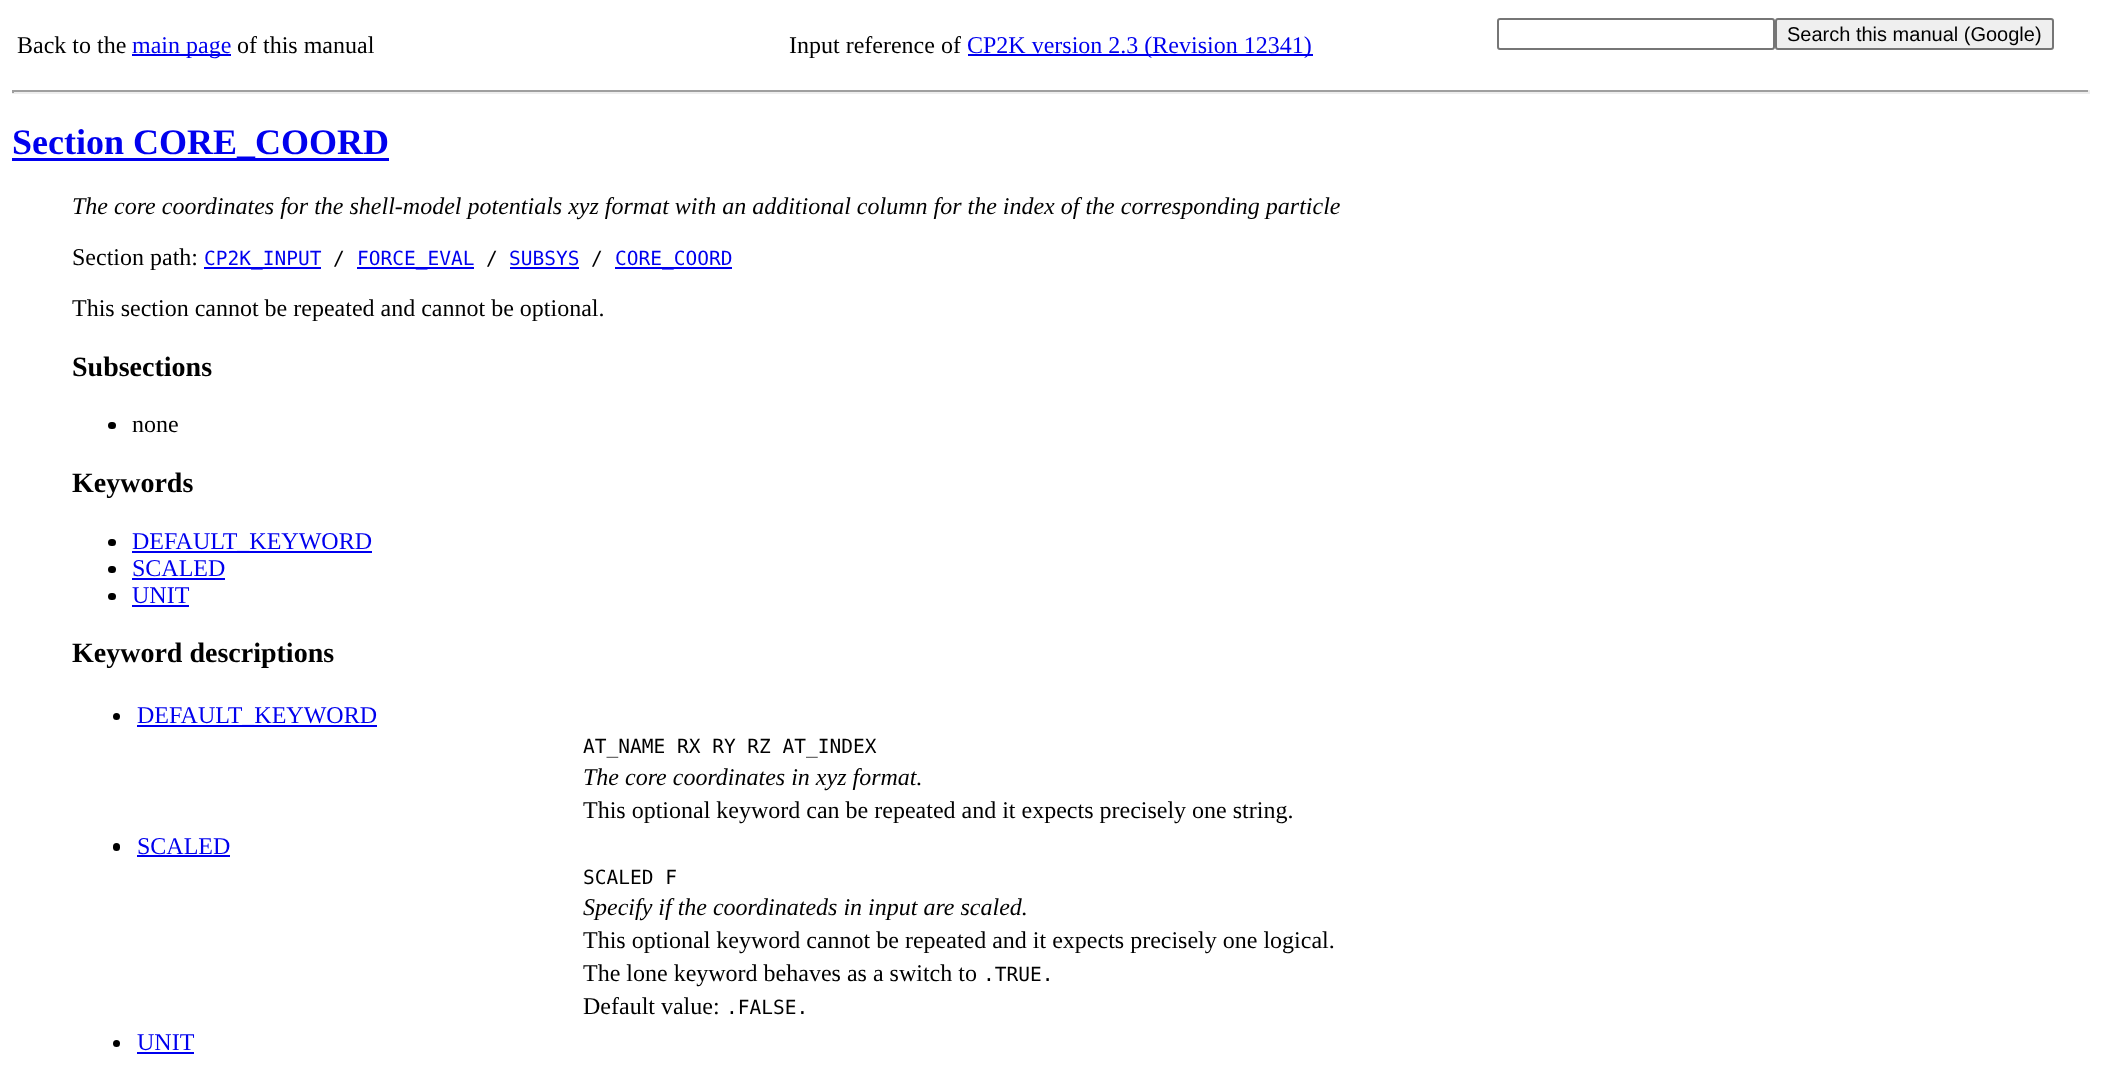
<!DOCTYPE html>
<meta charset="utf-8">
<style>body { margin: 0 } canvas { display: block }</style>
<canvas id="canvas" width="2101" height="1073"></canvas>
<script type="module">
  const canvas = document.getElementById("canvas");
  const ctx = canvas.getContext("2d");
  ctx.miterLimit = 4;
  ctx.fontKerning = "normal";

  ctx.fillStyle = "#ffffff";
  ctx.fillRect(0, 0, 2101, 1073);
  ctx.font = "24px Liberation Serif";
  ctx.fillStyle = "#000000";
  ctx.fillText("Back to the", 17, 53);
  ctx.fillStyle = "#0000ee";
  ctx.fillRect(132, 54, 99, 2);
  ctx.fillText("main page", 132, 53);
  ctx.fillStyle = "#000000";
  ctx.fillText("of this manual", 237, 53);
  ctx.fillText("Input reference of", 789, 53);
  ctx.fillStyle = "#0000ee";
  ctx.fillRect(968, 54, 345, 2);
  ctx.fillText("CP2K version 2.3 (Revision 12341)", 967, 53);
  ctx.beginPath();
  ctx.roundRect(1498, 19, 276, 30, 2);
  ctx.strokeStyle = "#767676";
  ctx.lineWidth = 2;
  ctx.stroke();
  ctx.fillStyle = "#efefef";
  ctx.beginPath();
  ctx.roundRect(1776, 19, 277, 30, 2);
  ctx.fill();
  ctx.stroke();
  ctx.font = "20px Liberation Sans";
  ctx.fillStyle = "#000000";
  ctx.fillText("Search this manual (Google)", 1787, 41);
  ctx.fillStyle = "#9f9f9f";
  ctx.fillRect(12, 90, 2078, 2);
  ctx.fillStyle = "#eeeeee";
  ctx.fillRect(2088, 90, 2, 3);
  ctx.fillRect(12, 92, 2078, 2);
  ctx.fillStyle = "#9f9f9f";
  ctx.fillRect(12, 90, 2, 3);
  ctx.fillStyle = "#0000ee";
  ctx.fillRect(12, 158, 377, 3);
  ctx.font = "bold 36px Liberation Serif";
  ctx.fillText("Section CORE_COORD", 12, 154);
  ctx.font = "italic 24px Liberation Serif";
  ctx.fillStyle = "#000000";
  ctx.fillText("The core coordinates for the shell-model potentials xyz format with an additional column for the index of the corresponding particle", 72, 214);
  ctx.font = "24px Liberation Serif";
  ctx.fillText("Section path:", 72, 265);
  ctx.fillStyle = "#0000ee";
  ctx.fillRect(204, 267, 117, 2);
  ctx.font = "19.5px DejaVu Sans Mono";
  ctx.fillText("CP2K_INPUT", 204, 265);
  ctx.fillStyle = "#000000";
  ctx.fillText("/", 333, 265);
  ctx.fillStyle = "#0000ee";
  ctx.fillRect(357, 267, 117, 2);
  ctx.fillText("FORCE_EVAL", 357, 265);
  ctx.fillStyle = "#000000";
  ctx.fillText("/", 486, 265);
  ctx.fillStyle = "#0000ee";
  ctx.fillText("SUBSYS", 509, 265);
  ctx.fillRect(510, 267, 69, 2);
  ctx.fillStyle = "#000000";
  ctx.fillText("/", 591, 265);
  ctx.fillStyle = "#0000ee";
  ctx.fillRect(615, 267, 117, 2);
  ctx.fillText("CORE_COORD", 615, 265);
  ctx.font = "24px Liberation Serif";
  ctx.fillStyle = "#000000";
  ctx.fillText("This section cannot be repeated and cannot be optional.", 72, 316);
  ctx.font = "bold 28px Liberation Serif";
  ctx.fillText("Subsections", 72, 376);
  ctx.beginPath();
  ctx.roundRect(108, 422, 8, 7, 3.5);
  ctx.fill();
  ctx.font = "24px Liberation Serif";
  ctx.fillText("none", 132, 432);
  ctx.font = "bold 28px Liberation Serif";
  ctx.fillText("Keywords", 72, 492);
  ctx.beginPath();
  ctx.roundRect(108, 539, 8, 7, 3.5);
  ctx.fill();
  ctx.fillStyle = "#0000ee";
  ctx.fillRect(132, 551, 240, 2);
  ctx.font = "24px Liberation Serif";
  ctx.fillText("DEFAULT_KEYWORD", 132, 549);
  ctx.fillStyle = "#000000";
  ctx.beginPath();
  ctx.roundRect(108, 566, 8, 7, 3.5);
  ctx.fill();
  ctx.fillStyle = "#0000ee";
  ctx.fillText("SCALED", 132, 576);
  ctx.fillRect(132, 578, 93, 2);
  ctx.fillStyle = "#000000";
  ctx.beginPath();
  ctx.roundRect(108, 593, 8, 7, 3.5);
  ctx.fill();
  ctx.fillStyle = "#0000ee";
  ctx.fillText("UNIT", 132, 603);
  ctx.fillRect(132, 605, 57, 2);
  ctx.font = "bold 28px Liberation Serif";
  ctx.fillStyle = "#000000";
  ctx.fillText("Keyword descriptions", 72, 662);
  ctx.beginPath();
  ctx.arc(116.5, 716.5, 3.5, 0, Math.PI * 2);
  ctx.fill();
  ctx.fillStyle = "#0000ee";
  ctx.fillRect(137, 725, 240, 2);
  ctx.font = "24px Liberation Serif";
  ctx.fillText("DEFAULT_KEYWORD", 137, 723);
  ctx.font = "19.5px DejaVu Sans Mono";
  ctx.fillStyle = "#000000";
  ctx.fillText("AT_NAME RX RY RZ AT_INDEX", 583, 753);
  ctx.font = "italic 24px Liberation Serif";
  ctx.fillText("The core coordinates in xyz format.", 583, 785);
  ctx.font = "24px Liberation Serif";
  ctx.fillText("This optional keyword can be repeated and it expects precisely one string.", 583, 818);
  ctx.beginPath();
  ctx.roundRect(113, 843, 7, 8, 3.5);
  ctx.fill();
  ctx.fillStyle = "#0000ee";
  ctx.fillText("SCALED", 137, 854);
  ctx.fillRect(137, 855, 93, 2);
  ctx.font = "19.5px DejaVu Sans Mono";
  ctx.fillStyle = "#000000";
  ctx.fillText("SCALED F", 583, 884);
  ctx.font = "italic 24px Liberation Serif";
  ctx.fillText("Specify if the coordinateds in input are scaled.", 583, 915);
  ctx.font = "24px Liberation Serif";
  ctx.fillText("This optional keyword cannot be repeated and it expects precisely one logical.", 583, 948);
  ctx.fillText("The lone keyword behaves as a switch to", 583, 981);
  ctx.font = "19.5px DejaVu Sans Mono";
  ctx.fillText(".TRUE.", 983, 981);
  ctx.font = "24px Liberation Serif";
  ctx.fillText("Default value:", 583, 1014);
  ctx.font = "19.5px DejaVu Sans Mono";
  ctx.fillText(".FALSE.", 726, 1014);
  ctx.beginPath();
  ctx.arc(116.5, 1043.5, 3.5, 0, Math.PI * 2);
  ctx.fill();
  ctx.font = "24px Liberation Serif";
  ctx.fillStyle = "#0000ee";
  ctx.fillText("UNIT", 137, 1050);
  ctx.fillRect(137, 1052, 57, 2);
</script>
